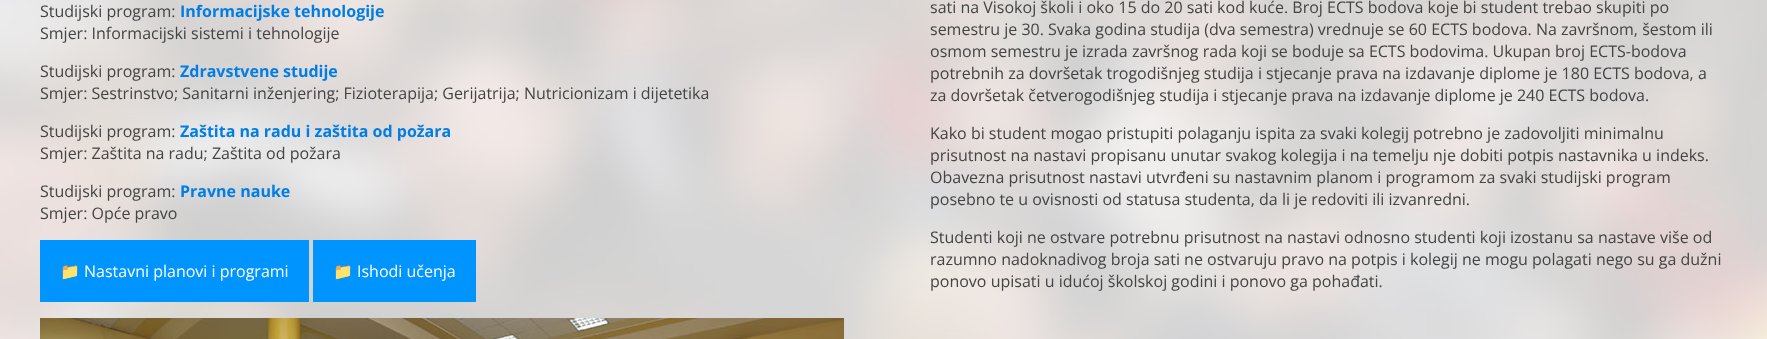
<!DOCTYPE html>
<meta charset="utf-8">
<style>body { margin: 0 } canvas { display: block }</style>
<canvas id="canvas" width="1767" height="339"></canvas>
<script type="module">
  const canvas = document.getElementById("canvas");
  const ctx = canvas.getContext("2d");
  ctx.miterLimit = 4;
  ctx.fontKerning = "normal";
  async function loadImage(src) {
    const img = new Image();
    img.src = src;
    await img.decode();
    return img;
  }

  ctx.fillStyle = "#ffffff";
  ctx.fillRect(0, 0, 1767, 339);
  ctx.drawImage(await loadImage("img1.png"), 0, 0, 1767, 339);
  ctx.font = "16px Open Sans";
  ctx.fillStyle = "#444444";
  ctx.fillText("Studijski program:", 40, 17);
  ctx.font = "bold 16px Open Sans";
  ctx.fillStyle = "#007ee5";
  ctx.fillText("Informacijske tehnologije", 180, 17);
  ctx.font = "16px Open Sans";
  ctx.fillStyle = "#444444";
  ctx.fillText("Smjer: Informacijski sistemi i tehnologije", 40, 39);
  ctx.fillText("Studijski program:", 40, 77);
  ctx.font = "bold 16px Open Sans";
  ctx.fillStyle = "#007ee5";
  ctx.fillText("Zdravstvene studije", 180, 77);
  ctx.font = "16px Open Sans";
  ctx.fillStyle = "#444444";
  ctx.fillText("Smjer: Sestrinstvo; Sanitarni inženjering; Fizioterapija; Gerijatrija; Nutricionizam i dijetetika", 40, 99);
  ctx.fillText("Studijski program:", 40, 137);
  ctx.font = "bold 16px Open Sans";
  ctx.fillStyle = "#007ee5";
  ctx.fillText("Zaštita na radu i zaštita od požara", 180, 137);
  ctx.font = "16px Open Sans";
  ctx.fillStyle = "#444444";
  ctx.fillText("Smjer: Zaštita na radu; Zaštita od požara", 40, 159);
  ctx.fillText("Studijski program:", 40, 197);
  ctx.font = "bold 16px Open Sans";
  ctx.fillStyle = "#007ee5";
  ctx.fillText("Pravne nauke", 180, 197);
  ctx.font = "16px Open Sans";
  ctx.fillStyle = "#444444";
  ctx.fillText("Smjer: Opće pravo", 40, 219);
  ctx.fillStyle = "#0094ff";
  ctx.fillRect(40, 240, 269, 62);
  ctx.font = "16px Noto Color Emoji";
  ctx.fillStyle = "#ffffff";
  ctx.fillText("📁", 60, 277);
  ctx.font = "16px Open Sans";
  ctx.fillText("Nastavni planovi i programi", 84, 277);
  ctx.fillStyle = "#0094ff";
  ctx.fillRect(313, 240, 163, 62);
  ctx.font = "16px Noto Color Emoji";
  ctx.fillStyle = "#ffffff";
  ctx.fillText("📁", 333, 277);
  ctx.font = "16px Open Sans";
  ctx.fillText("Ishodi učenja", 357, 277);
  ctx.drawImage(await loadImage("img2.png"), 40, 318, 804, 21);
  ctx.fillStyle = "#444444";
  ctx.fillText("sati na Visokoj školi i oko 15 do 20 sati kod kuće. Broj ECTS bodova koje bi student trebao skupiti po", 930, 13);
  ctx.fillText("semestru je 30. Svaka godina studija (dva semestra) vrednuje se 60 ECTS bodova. Na završnom, šestom ili", 930, 35);
  ctx.fillText("osmom semestru je izrada završnog rada koji se boduje sa ECTS bodovima. Ukupan broj ECTS-bodova", 930, 57);
  ctx.fillText("potrebnih za dovršetak trogodišnjeg studija i stjecanje prava na izdavanje diplome je 180 ECTS bodova, a", 930, 79);
  ctx.fillText("za dovršetak četverogodišnjeg studija i stjecanje prava na izdavanje diplome je 240 ECTS bodova.", 930, 101);
  ctx.fillText("Kako bi student mogao pristupiti polaganju ispita za svaki kolegij potrebno je zadovoljiti minimalnu", 930, 139);
  ctx.fillText("prisutnost na nastavi propisanu unutar svakog kolegija i na temelju nje dobiti potpis nastavnika u indeks.", 930, 161);
  ctx.fillText("Obavezna prisutnost nastavi utvrđeni su nastavnim planom i programom za svaki studijski program", 930, 183);
  ctx.fillText("posebno te u ovisnosti od statusa studenta, da li je redoviti ili izvanredni.", 930, 205);
  ctx.fillText("Studenti koji ne ostvare potrebnu prisutnost na nastavi odnosno studenti koji izostanu sa nastave više od", 930, 243);
  ctx.fillText("razumno nadoknadivog broja sati ne ostvaruju pravo na potpis i kolegij ne mogu polagati nego su ga dužni", 930, 265);
  ctx.fillText("ponovo upisati u idućoj školskoj godini i ponovo ga pohađati.", 930, 287);
</script>
